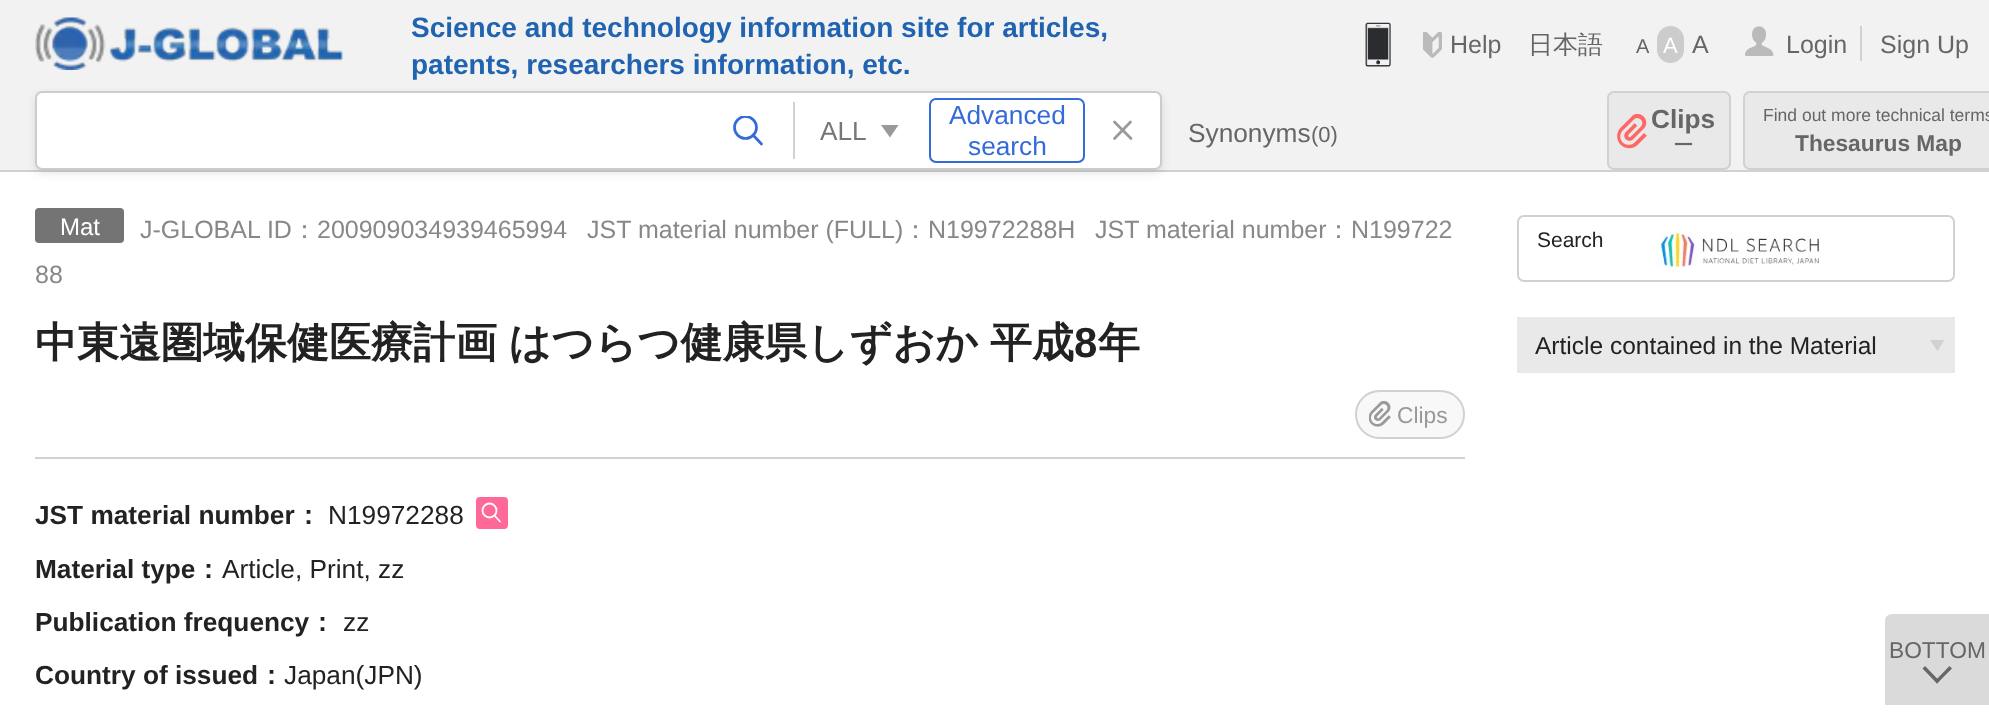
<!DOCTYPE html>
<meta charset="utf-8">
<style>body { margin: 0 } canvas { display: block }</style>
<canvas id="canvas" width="1989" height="718"></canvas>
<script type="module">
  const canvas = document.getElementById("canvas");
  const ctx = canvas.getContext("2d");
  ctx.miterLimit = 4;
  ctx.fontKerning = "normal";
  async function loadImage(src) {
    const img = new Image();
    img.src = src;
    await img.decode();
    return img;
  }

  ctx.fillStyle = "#ffffff";
  ctx.fillRect(0, 0, 1989, 718);
  ctx.fillStyle = "#f2f2f2";
  ctx.fillRect(0, 0, 1989, 170);
  ctx.drawImage(await loadImage("img1.png"), 35, 17, 308, 53);
  ctx.font = "bold 28px Liberation Sans";
  ctx.fillStyle = "#2064b1";
  ctx.fillText("Science and technology information site for articles,", 411, 37);
  ctx.fillText("patents, researchers information, etc.", 411, 74);
  ctx.drawImage(await loadImage("img2.png"), 1365, 22, 26, 45);
  ctx.drawImage(await loadImage("img3.png"), 1423, 32, 19, 26);
  ctx.font = "25px Liberation Sans";
  ctx.fillStyle = "#666666";
  ctx.fillText("Help", 1450, 53);
  ctx.font = "500 25px WenQuanYi Zen Hei";
  ctx.fillText("日本語", 1528, 53);
  ctx.font = "20px Liberation Sans";
  ctx.fillText("A", 1636, 53);
  ctx.fillStyle = "#cccccc";
  ctx.beginPath();
  ctx.roundRect(1657, 26, 27, 37, 13.5);
  ctx.fill();
  ctx.font = "22px Liberation Sans";
  ctx.fillStyle = "#ffffff";
  ctx.fillText("A", 1663, 53);
  ctx.font = "25px Liberation Sans";
  ctx.fillStyle = "#666666";
  ctx.fillText("A", 1692, 53);
  ctx.drawImage(await loadImage("img4.png"), 1745, 26, 29, 30);
  ctx.fillStyle = "#d1d1d1";
  ctx.fillRect(1860, 26, 2, 35);
  ctx.fillStyle = "#666666";
  ctx.fillText("Login", 1786, 53);
  ctx.fillText("Sign Up", 1880, 53);
  ctx.fillStyle = "#d1d1d1";
  ctx.fillRect(0, 170, 1989, 2);
  ctx.fillStyle = "rgba(0, 0, 0, 0.1)";
  ctx.filter = "blur(4.5px)";
  ctx.beginPath();
  ctx.roundRect(35, 95, 1127, 78, 7);
  ctx.fill();
  ctx.filter = "none";
  ctx.fillStyle = "#ffffff";
  ctx.beginPath();
  ctx.roundRect(36, 92, 1125, 77, 6);
  ctx.fill();
  ctx.strokeStyle = "#cccccc";
  ctx.lineWidth = 2;
  ctx.stroke();
  ctx.save();
  ctx.beginPath();
  ctx.rect(733, 116, 30, 29);
  ctx.clip();
  ctx.beginPath();
  ctx.arc(745.5, 127.5, 11, 0, Math.PI * 2);
  ctx.strokeStyle = "#346ad9";
  ctx.lineWidth = 2.7;
  ctx.stroke();
  ctx.restore();
  ctx.beginPath();
  ctx.moveTo(753, 135);
  ctx.lineTo(761.5, 144);
  ctx.strokeStyle = "#346ad9";
  ctx.lineWidth = 2.7;
  ctx.lineCap = "round";
  ctx.lineJoin = "round";
  ctx.stroke();
  ctx.fillStyle = "#999999";
  ctx.beginPath();
  ctx.moveTo(898.5, 125);
  ctx.lineTo(890, 137.5);
  ctx.lineTo(881, 125);
  ctx.closePath();
  ctx.fill();
  ctx.fillStyle = "#d1d1d1";
  ctx.fillRect(793, 102, 2, 57);
  ctx.font = "26.25px Liberation Sans";
  ctx.fillStyle = "#777777";
  ctx.fillText("ALL", 820, 140);
  ctx.beginPath();
  ctx.roundRect(930, 99, 154, 63, 6);
  ctx.lineWidth = 2;
  ctx.lineJoin = "miter";
  ctx.stroke();
  ctx.fillStyle = "#346ad9";
  ctx.fillText("Advanced", 949, 124);
  ctx.fillText("search", 968, 155);
  ctx.beginPath();
  ctx.moveTo(1114.5, 138.5);
  ctx.lineTo(1130.5, 122);
  ctx.moveTo(1114.5, 122);
  ctx.lineTo(1131, 138.5);
  ctx.strokeStyle = "#999999";
  ctx.lineWidth = 2.7;
  ctx.lineJoin = "round";
  ctx.stroke();
  ctx.fillStyle = "#666666";
  ctx.fillText("Synonyms", 1188, 142);
  ctx.font = "22px Liberation Sans";
  ctx.fillText("(0)", 1311, 142);
  ctx.fillStyle = "#e9e9e9";
  ctx.beginPath();
  ctx.roundRect(1607, 91, 124, 79, 7);
  ctx.fill();
  ctx.drawImage(await loadImage("img5.png"), 1617, 114, 30, 35);
  ctx.beginPath();
  ctx.roundRect(1608, 92, 122, 77, 6);
  ctx.strokeStyle = "#d1d1d1";
  ctx.lineWidth = 2;
  ctx.lineJoin = "miter";
  ctx.stroke();
  ctx.font = "bold 26.25px Liberation Sans";
  ctx.fillStyle = "#666666";
  ctx.fillText("Clips", 1651, 128);
  ctx.font = "500 21px WenQuanYi Zen Hei";
  ctx.fillText("ー", 1673, 152);
  ctx.fillStyle = "#e9e9e9";
  ctx.beginPath();
  ctx.roundRect(1744, 92, 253, 77, 6);
  ctx.fill();
  ctx.stroke();
  ctx.font = "17.5px Liberation Sans";
  ctx.fillStyle = "#666666";
  ctx.fillText("Find out more technical terms", 1763, 121);
  ctx.font = "bold 22.75px Liberation Sans";
  ctx.fillText("Thesaurus Map", 1795, 151);
  ctx.fillStyle = "#d1d1d1";
  ctx.fillRect(35, 457, 1430, 2);
  ctx.fillStyle = "#747474";
  ctx.beginPath();
  ctx.roundRect(35, 208, 89, 35, 4);
  ctx.fill();
  ctx.font = "24px Liberation Sans";
  ctx.fillStyle = "#ffffff";
  ctx.fillText("Mat", 60, 235);
  ctx.font = "25px Liberation Sans";
  ctx.fillStyle = "#888888";
  ctx.fillText("J-GLOBAL ID", 140, 238);
  ctx.font = "500 25px WenQuanYi Zen Hei";
  ctx.fillText("：", 292, 238);
  ctx.font = "25px Liberation Sans";
  ctx.fillText("200909034939465994", 317, 238);
  ctx.fillText("JST material number (FULL)", 587, 238);
  ctx.font = "500 25px WenQuanYi Zen Hei";
  ctx.fillText("：", 903, 238);
  ctx.font = "25px Liberation Sans";
  ctx.fillText("N19972288H", 928, 238);
  ctx.fillText("JST material number", 1095, 238);
  ctx.font = "500 25px WenQuanYi Zen Hei";
  ctx.fillText("：", 1326, 238);
  ctx.font = "25px Liberation Sans";
  ctx.fillText("N199722", 1351, 238);
  ctx.fillText("88", 35, 283);
  ctx.wordSpacing = "-1px";
  ctx.font = "bold 42px WenQuanYi Zen Hei";
  ctx.fillStyle = "#222222";
  ctx.fillText("中東遠圏域保健医療計画 はつらつ健康県しずおか 平成", 35, 357);
  ctx.wordSpacing = "0px";
  ctx.font = "bold 42px Liberation Sans";
  ctx.fillText("8", 1074, 357);
  ctx.font = "bold 42px WenQuanYi Zen Hei";
  ctx.fillText("年", 1098, 357);
  ctx.fillStyle = "#f8f8f8";
  ctx.beginPath();
  ctx.roundRect(1355, 390, 110, 49, 24.5);
  ctx.fill();
  ctx.drawImage(await loadImage("img6.png"), 1369, 401, 22, 26);
  ctx.beginPath();
  ctx.roundRect(1356, 391, 108, 47, 23.5);
  ctx.stroke();
  ctx.font = "22.75px Liberation Sans";
  ctx.fillStyle = "#999999";
  ctx.fillText("Clips", 1397, 423);
  ctx.font = "bold 26.25px Liberation Sans";
  ctx.fillStyle = "#222222";
  ctx.fillText("JST material number", 35, 524);
  ctx.font = "bold 26.25px WenQuanYi Zen Hei";
  ctx.fillText("：", 295, 524);
  ctx.font = "26.25px Liberation Sans";
  ctx.fillText("N19972288", 328, 524);
  ctx.fillStyle = "#ff6997";
  ctx.beginPath();
  ctx.roundRect(476, 497, 32, 32, 4);
  ctx.fill();
  ctx.beginPath();
  ctx.arc(489.5, 510.5, 7, 0, Math.PI * 2);
  ctx.strokeStyle = "#ffffff";
  ctx.lineWidth = 1.8;
  ctx.stroke();
  ctx.beginPath();
  ctx.moveTo(494.5, 515.5);
  ctx.lineTo(500, 521.5);
  ctx.lineJoin = "round";
  ctx.stroke();
  ctx.font = "bold 26.25px Liberation Sans";
  ctx.fillStyle = "#222222";
  ctx.fillText("Material type", 35, 578);
  ctx.font = "bold 26.25px WenQuanYi Zen Hei";
  ctx.fillText("：", 195, 578);
  ctx.font = "26.25px Liberation Sans";
  ctx.fillText("Article, Print, zz", 222, 578);
  ctx.font = "bold 26.25px Liberation Sans";
  ctx.fillText("Publication frequency", 35, 631);
  ctx.font = "bold 26.25px WenQuanYi Zen Hei";
  ctx.fillText("：", 309, 631);
  ctx.font = "26.25px Liberation Sans";
  ctx.fillText("zz", 343, 631);
  ctx.font = "bold 26.25px Liberation Sans";
  ctx.fillText("Country of issued", 35, 684);
  ctx.font = "bold 26.25px WenQuanYi Zen Hei";
  ctx.fillText("：", 258, 684);
  ctx.font = "26.25px Liberation Sans";
  ctx.fillText("Japan(JPN)", 284, 684);
  ctx.beginPath();
  ctx.roundRect(1518, 216, 436, 65, 6);
  ctx.strokeStyle = "#d1d1d1";
  ctx.lineWidth = 2;
  ctx.lineJoin = "miter";
  ctx.stroke();
  ctx.font = "21px Liberation Sans";
  ctx.fillText("Search", 1537, 247);
  ctx.drawImage(await loadImage("img7.png"), 1657, 232, 162, 36);
  ctx.fillStyle = "#e9e9e9";
  ctx.fillRect(1517, 317, 438, 56);
  ctx.fillStyle = "#d1d1d1";
  ctx.beginPath();
  ctx.moveTo(1944.5, 340);
  ctx.lineTo(1937.5, 351);
  ctx.lineTo(1930, 340);
  ctx.closePath();
  ctx.fill();
  ctx.font = "24.5px Liberation Sans";
  ctx.fillStyle = "#222222";
  ctx.fillText("Article contained in the Material", 1535, 354);
  ctx.fillStyle = "#dadada";
  ctx.beginPath();
  ctx.moveTo(1892, 614);
  ctx.lineTo(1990, 614);
  ctx.lineTo(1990, 705);
  ctx.lineTo(1885, 705);
  ctx.lineTo(1885, 621);
  ctx.bezierCurveTo(1885, 617, 1888, 614, 1892, 614);
  ctx.closePath();
  ctx.fill();
  ctx.font = "22.75px Liberation Sans";
  ctx.fillStyle = "#666666";
  ctx.fillText("BOTTOM", 1889, 658);
  ctx.beginPath();
  ctx.moveTo(1935, 681);
  ctx.lineTo(1949.5, 666);
  ctx.lineTo(1952, 668.5);
  ctx.lineTo(1937, 683.5);
  ctx.closePath();
  ctx.fill();
  ctx.beginPath();
  ctx.moveTo(1922.5, 668.5);
  ctx.lineTo(1925, 666);
  ctx.lineTo(1939.5, 681);
  ctx.lineTo(1937, 683.5);
  ctx.closePath();
  ctx.fill();
</script>
